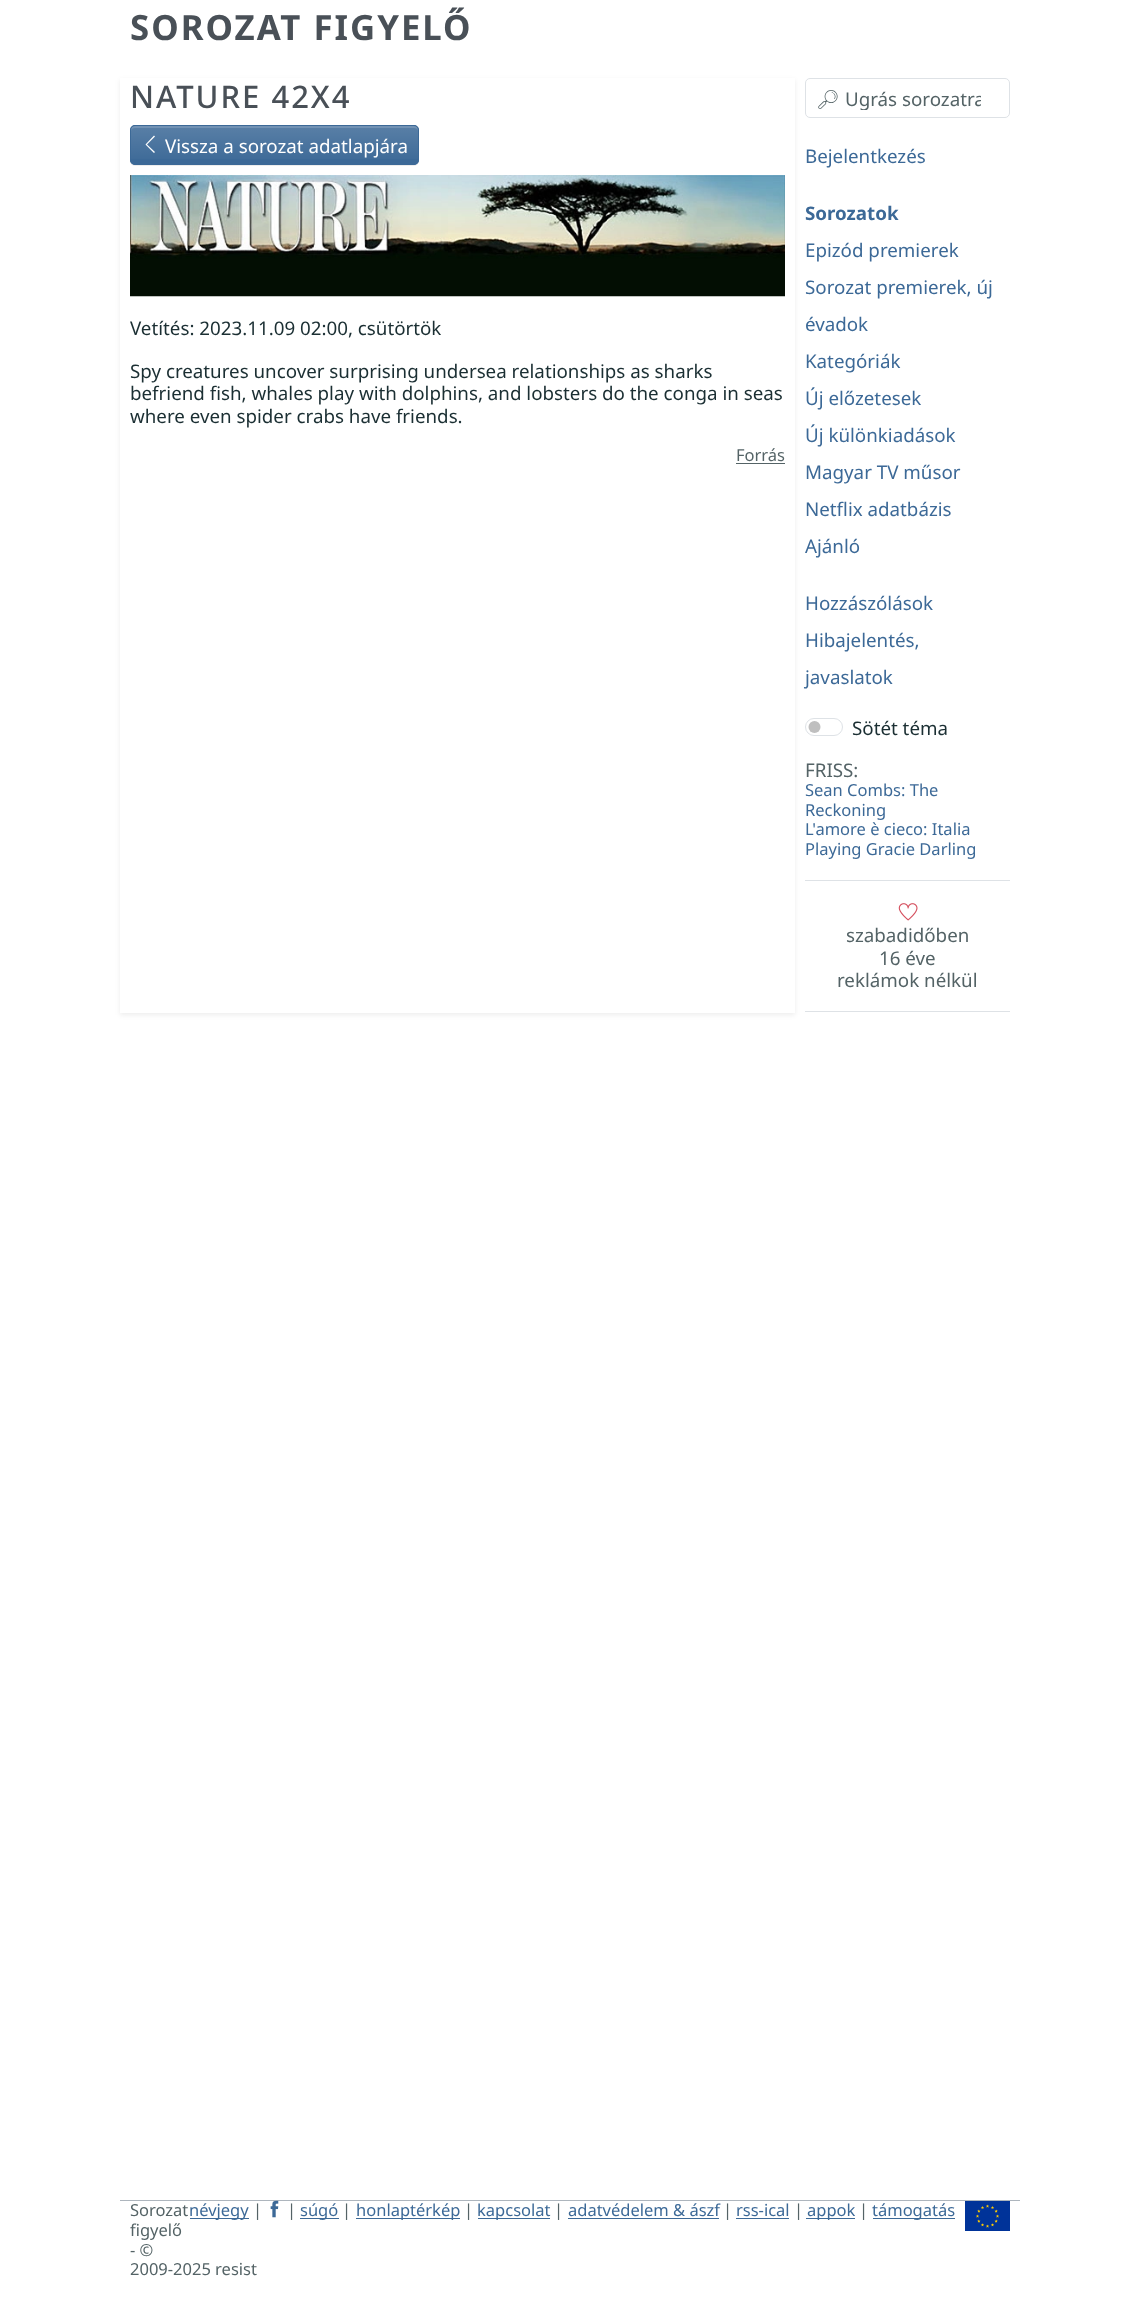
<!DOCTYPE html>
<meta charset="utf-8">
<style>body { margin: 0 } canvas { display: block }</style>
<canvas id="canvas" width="1140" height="2300"></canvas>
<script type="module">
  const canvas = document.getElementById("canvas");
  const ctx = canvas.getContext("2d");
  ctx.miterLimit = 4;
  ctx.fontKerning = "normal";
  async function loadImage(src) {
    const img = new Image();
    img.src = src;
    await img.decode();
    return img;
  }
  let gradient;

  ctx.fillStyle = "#ffffff";
  ctx.fillRect(0, 0, 1140, 2300);
  ctx.letterSpacing = "2px";
  ctx.font = "bold 34.75px Noto Sans";
  ctx.fillStyle = "#495057";
  ctx.fillText("SOROZAT FIGYELŐ", 130, 40);
  ctx.save();
  ctx.beginPath();
  ctx.moveTo(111, 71);
  ctx.lineTo(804, 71);
  ctx.lineTo(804, 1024);
  ctx.lineTo(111, 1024);
  ctx.closePath();
  ctx.moveTo(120, 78);
  ctx.lineTo(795, 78);
  ctx.lineTo(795, 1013);
  ctx.lineTo(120, 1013);
  ctx.closePath();
  ctx.clip("evenodd");
  ctx.fillStyle = "rgba(0, 0, 0, 0.07)";
  ctx.filter = "blur(2.5px)";
  ctx.beginPath();
  ctx.rect(120, 80, 675, 935);
  ctx.fill();
  ctx.filter = "none";
  ctx.restore();
  ctx.font = "500 31px Noto Sans";
  ctx.fillText("NATURE 42X4", 130, 108);
  ctx.fillStyle = "rgba(0, 0, 0, 0.07)";
  ctx.filter = "blur(0.5px)";
  ctx.beginPath();
  ctx.roundRect(130, 126, 289, 40, 5);
  ctx.fill();
  ctx.filter = "none";
  ctx.fillStyle = "#3c6997";
  ctx.beginPath();
  ctx.roundRect(130, 125, 289, 40, 5);
  ctx.fill();
  ctx.save();
  ctx.beginPath();
  ctx.roundRect(130, 125, 289, 40, 5);
  ctx.clip();
  gradient = ctx.createLinearGradient(274, 126, 274, 164);
  gradient.addColorStop(0, "rgba(255, 255, 255, 0.15)");
  gradient.addColorStop(1, "rgba(255, 255, 255, 0)");
  ctx.fillStyle = gradient;
  ctx.fillRect(130, 126, 289, 33);
  ctx.restore();
  ctx.fillStyle = "#7292b4";
  ctx.beginPath();
  ctx.moveTo(135, 128);
  ctx.lineTo(414, 128);
  ctx.bezierCurveTo(416, 128, 418, 129, 418, 131);
  ctx.bezierCurveTo(418, 128, 417, 126, 414, 126);
  ctx.lineTo(135, 126);
  ctx.bezierCurveTo(132, 126, 131, 128, 131, 131);
  ctx.bezierCurveTo(131, 129, 133, 128, 135, 128);
  ctx.closePath();
  ctx.fill();
  ctx.beginPath();
  ctx.roundRect(130.5, 125.5, 288, 39, 4.5);
  ctx.strokeStyle = "#3c6997";
  ctx.stroke();
  ctx.fillStyle = "#ffffff";
  ctx.beginPath();
  ctx.moveTo(147, 144.5);
  ctx.lineTo(155, 152);
  ctx.lineTo(154, 153);
  ctx.lineTo(145.5, 144.5);
  ctx.lineTo(154, 135.5);
  ctx.lineTo(155, 136.5);
  ctx.closePath();
  ctx.fill();
  ctx.letterSpacing = "0px";
  ctx.font = "18.75px Noto Sans";
  ctx.fillText("Vissza a sorozat adatlapjára", 165, 153);
  ctx.drawImage(await loadImage("img1.png"), 130, 175, 655, 122);
  ctx.fillStyle = "#1b2f33";
  ctx.fillText("Vetítés: 2023.11.09 02:00, csütörtök", 130, 335);
  ctx.fillText("Spy creatures uncover surprising undersea relationships as sharks", 130, 378);
  ctx.fillText("befriend fish, whales play with dolphins, and lobsters do the conga in seas", 130, 400);
  ctx.fillText("where even spider crabs have friends.", 130, 423);
  ctx.font = "16.5px Noto Sans";
  ctx.fillStyle = "#546366";
  ctx.fillText("Forrás", 736, 461);
  ctx.fillRect(736, 463, 49, 1);
  ctx.beginPath();
  ctx.roundRect(805.5, 78.5, 204, 39, 4.5);
  ctx.strokeStyle = "#dee2e6";
  ctx.stroke();
  ctx.font = "18.75px Noto Emoji";
  ctx.fillText("🔎︎", 816, 106);
  ctx.save();
  ctx.beginPath();
  ctx.rect(816, 85, 165, 25);
  ctx.clip();
  ctx.font = "18.75px Noto Sans";
  ctx.fillText("Ugrás sorozatra", 845, 106);
  ctx.restore();
  ctx.font = "18.75px Noto Sans";
  ctx.fillStyle = "#3c6997";
  ctx.fillText("Bejelentkezés", 805, 163);
  ctx.font = "bold 18.75px Noto Sans";
  ctx.fillText("Sorozatok", 805, 220);
  ctx.font = "18.75px Noto Sans";
  ctx.fillText("Epizód premierek", 805, 257);
  ctx.fillText("Sorozat premierek, új", 805, 294);
  ctx.fillText("évadok", 805, 331);
  ctx.fillText("Kategóriák", 805, 368);
  ctx.fillText("Új előzetesek", 805, 405);
  ctx.fillText("Új különkiadások", 805, 442);
  ctx.fillText("Magyar TV műsor", 805, 479);
  ctx.fillText("Netflix adatbázis", 805, 516);
  ctx.fillText("Ajánló", 805, 553);
  ctx.fillText("Hozzászólások", 805, 610);
  ctx.fillText("Hibajelentés,", 805, 647);
  ctx.fillText("javaslatok", 805, 684);
  ctx.fillStyle = "#bfbfbf";
  ctx.beginPath();
  ctx.arc(814.5, 727, 6, 0, Math.PI * 2);
  ctx.fill();
  ctx.beginPath();
  ctx.roundRect(805.5, 718.5, 37, 17, 8.5);
  ctx.stroke();
  ctx.fillStyle = "#1b2f33";
  ctx.fillText("Sötét téma", 852, 735);
  ctx.fillStyle = "#546366";
  ctx.fillText("FRISS:", 805, 777);
  ctx.font = "16.5px Noto Sans";
  ctx.fillStyle = "#3c6997";
  ctx.fillText("Sean Combs: The", 805, 796);
  ctx.fillText("Reckoning", 805, 816);
  ctx.fillText("L'amore è cieco: Italia", 805, 835);
  ctx.fillText("Playing Gracie Darling", 805, 855);
  ctx.fillStyle = "#dee2e6";
  ctx.fillRect(805, 880, 205, 1);
  ctx.fillRect(805, 1011, 205, 1);
  ctx.drawImage(await loadImage("img2.png"), 898, 903, 20, 18);
  ctx.font = "18.75px Noto Sans";
  ctx.fillStyle = "#546366";
  ctx.fillText("szabadidőben", 846, 942);
  ctx.fillText("16 éve", 879, 965);
  ctx.fillText("reklámok nélkül", 837, 987);
  ctx.fillStyle = "#adb5bd";
  ctx.fillRect(120, 2200, 900, 1);
  ctx.fillStyle = "#3c6997";
  ctx.fillRect(190, 2218, 59, 1);
  ctx.font = "16.5px Noto Sans";
  ctx.fillText("névjegy", 189, 2216);
  ctx.fillStyle = "#546366";
  ctx.fillText("|", 253, 2216);
  ctx.drawImage(await loadImage("img3.png"), 270, 2200, 9, 18);
  ctx.fillText("|", 287, 2216);
  ctx.fillStyle = "#3c6997";
  ctx.fillRect(300, 2218, 39, 1);
  ctx.fillText("súgó", 300, 2216);
  ctx.fillStyle = "#546366";
  ctx.fillText("|", 342, 2216);
  ctx.fillStyle = "#3c6997";
  ctx.fillRect(356, 2218, 104, 1);
  ctx.fillText("honlaptérkép", 356, 2216);
  ctx.fillStyle = "#546366";
  ctx.fillText("|", 464, 2216);
  ctx.fillStyle = "#3c6997";
  ctx.fillRect(478, 2218, 72, 1);
  ctx.fillText("kapcsolat", 477, 2216);
  ctx.fillStyle = "#546366";
  ctx.fillText("|", 554, 2216);
  ctx.fillStyle = "#3c6997";
  ctx.fillText("adatvédelem & ászf", 568, 2216);
  ctx.fillRect(568, 2218, 151, 1);
  ctx.fillStyle = "#546366";
  ctx.fillText("|", 723, 2216);
  ctx.fillStyle = "#3c6997";
  ctx.fillText("rss-ical", 736, 2216);
  ctx.fillRect(736, 2218, 53, 1);
  ctx.fillStyle = "#546366";
  ctx.fillText("|", 794, 2216);
  ctx.fillStyle = "#3c6997";
  ctx.fillRect(806, 2218, 49, 1);
  ctx.fillText("appok", 807, 2216);
  ctx.fillStyle = "#546366";
  ctx.fillText("|", 859, 2216);
  ctx.fillStyle = "#3c6997";
  ctx.fillRect(873, 2218, 82, 1);
  ctx.fillText("támogatás", 872, 2216);
  ctx.drawImage(await loadImage("img4.png"), 965, 2201, 45, 30);
  ctx.fillStyle = "#546366";
  ctx.fillText("Sorozat", 130, 2216);
  ctx.fillText("figyelő", 130, 2236);
  ctx.fillText("- ©", 130, 2256);
  ctx.fillText("2009-2025 resist", 130, 2275);
</script>
